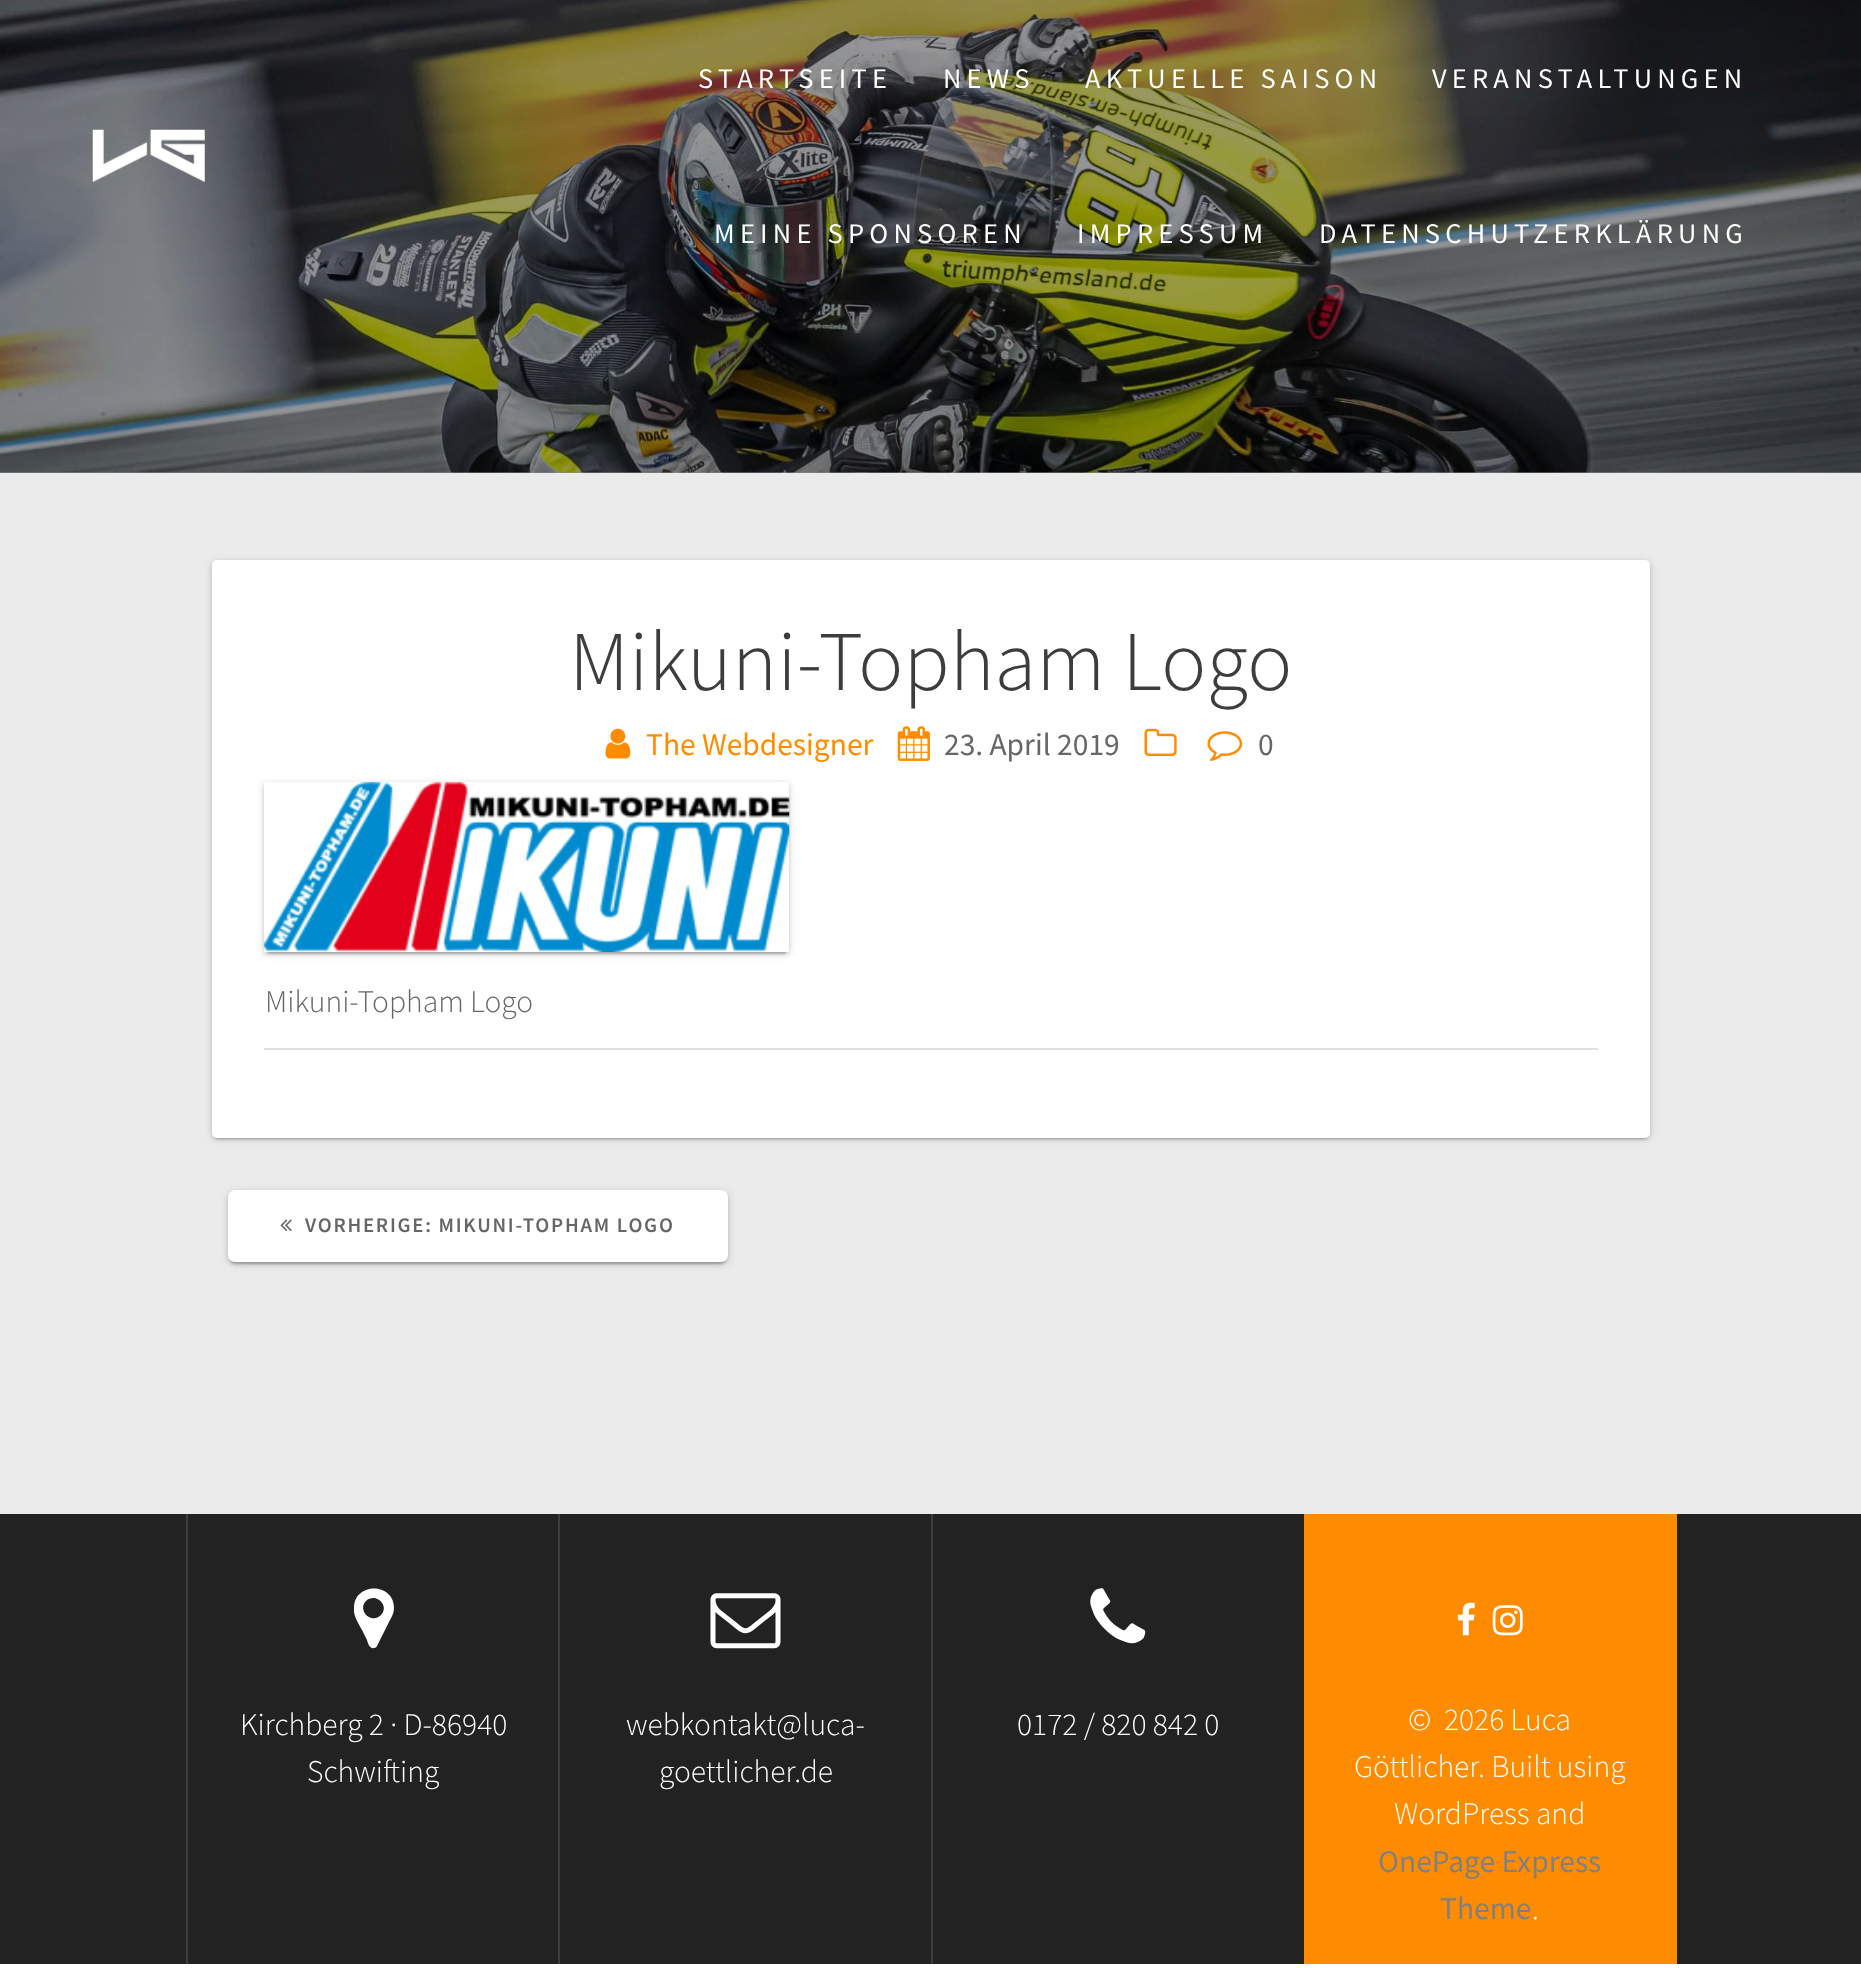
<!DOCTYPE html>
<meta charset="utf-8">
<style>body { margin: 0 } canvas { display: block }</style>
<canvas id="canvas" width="1861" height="1968"></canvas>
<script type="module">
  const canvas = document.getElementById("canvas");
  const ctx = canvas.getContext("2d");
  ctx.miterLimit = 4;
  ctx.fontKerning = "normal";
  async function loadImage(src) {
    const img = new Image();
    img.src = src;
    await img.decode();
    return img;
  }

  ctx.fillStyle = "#ffffff";
  ctx.fillRect(0, 0, 1861, 1968);
  ctx.fillStyle = "#8d8d8d";
  ctx.fillRect(0, 472, 1861, 1);
  ctx.drawImage(await loadImage("img2.png"), 0, 0, 1861, 473);
  ctx.drawImage(await loadImage("img1.png"), 92, 129, 113, 53);
  ctx.letterSpacing = "5.25px";
  ctx.font = "28.4px Source Sans Pro";
  ctx.fillStyle = "#ffffff";
  ctx.fillText("STARTSEITE", 698, 88);
  ctx.fillText("NEWS", 943, 88);
  ctx.fillText("AKTUELLE SAISON", 1085, 88);
  ctx.fillText("VERANSTALTUNGEN", 1432, 88);
  ctx.fillText("MEINE SPONSOREN", 714, 243);
  ctx.fillText("IMPRESSUM", 1077, 243);
  ctx.fillText("DATENSCHUTZERKLÄRUNG", 1319, 243);
  ctx.fillStyle = "#ebebeb";
  ctx.fillRect(0, 473, 1861, 1041);
  ctx.fillStyle = "rgba(0, 0, 0, 0.12)";
  ctx.filter = "blur(4.5px)";
  ctx.beginPath();
  ctx.roundRect(212, 562, 1438, 577, 5);
  ctx.fill();
  ctx.filter = "none";
  ctx.fillStyle = "rgba(0, 0, 0, 0.2)";
  ctx.filter = "blur(1px)";
  ctx.beginPath();
  ctx.roundRect(215, 569, 1432, 570, 2);
  ctx.fill();
  ctx.filter = "none";
  ctx.fillStyle = "rgba(0, 0, 0, 0.14)";
  ctx.filter = "blur(2px)";
  ctx.beginPath();
  ctx.roundRect(212, 562, 1438, 577, 5);
  ctx.fill();
  ctx.filter = "none";
  ctx.fillStyle = "#ffffff";
  ctx.beginPath();
  ctx.roundRect(212, 560, 1438, 578, 5);
  ctx.fill();
  ctx.letterSpacing = "0px";
  ctx.font = "300 85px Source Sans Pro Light";
  ctx.fillStyle = "#3d3d3d";
  ctx.fillText("Mikuni-Topham Logo", 569, 690);
  ctx.drawImage(await loadImage("img3.png"), 605, 728, 26, 31);
  ctx.font = "31.5px Source Sans Pro";
  ctx.fillStyle = "#ff8c00";
  ctx.fillText("The Webdesigner", 646, 755);
  ctx.drawImage(await loadImage("img4.png"), 897, 726, 33, 35);
  ctx.fillStyle = "#666666";
  ctx.fillText("23. April 2019", 944, 755);
  ctx.drawImage(await loadImage("img5.png"), 1144, 728, 33, 28);
  ctx.drawImage(await loadImage("img6.png"), 1207, 731, 36, 30);
  ctx.fillText("0", 1258, 755);
  ctx.fillStyle = "#e0e0e0";
  ctx.fillRect(264, 1048, 1334, 2);
  ctx.save();
  ctx.beginPath();
  ctx.moveTo(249, 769);
  ctx.lineTo(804, 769);
  ctx.lineTo(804, 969);
  ctx.lineTo(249, 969);
  ctx.closePath();
  ctx.moveTo(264, 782);
  ctx.lineTo(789, 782);
  ctx.lineTo(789, 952);
  ctx.lineTo(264, 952);
  ctx.closePath();
  ctx.clip("evenodd");
  ctx.fillStyle = "rgba(0, 0, 0, 0.12)";
  ctx.filter = "blur(4.5px)";
  ctx.beginPath();
  ctx.rect(264, 784, 525, 170);
  ctx.fill();
  ctx.filter = "none";
  ctx.restore();
  ctx.save();
  ctx.beginPath();
  ctx.moveTo(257, 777);
  ctx.lineTo(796, 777);
  ctx.lineTo(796, 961);
  ctx.lineTo(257, 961);
  ctx.closePath();
  ctx.moveTo(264, 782);
  ctx.lineTo(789, 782);
  ctx.lineTo(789, 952);
  ctx.lineTo(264, 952);
  ctx.closePath();
  ctx.clip("evenodd");
  ctx.fillStyle = "rgba(0, 0, 0, 0.14)";
  ctx.filter = "blur(2px)";
  ctx.beginPath();
  ctx.rect(264, 784, 525, 170);
  ctx.fill();
  ctx.filter = "none";
  ctx.restore();
  ctx.save();
  ctx.beginPath();
  ctx.rect(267, 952, 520, 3);
  ctx.clip();
  ctx.fillStyle = "rgba(0, 0, 0, 0.2)";
  ctx.filter = "blur(1px)";
  ctx.beginPath();
  ctx.rect(268, 791, 518, 163);
  ctx.fill();
  ctx.filter = "none";
  ctx.restore();
  ctx.drawImage(await loadImage("img7.png"), 264, 782, 526, 170);
  ctx.font = "300 31.5px Source Sans Pro Light";
  ctx.fillStyle = "#666666";
  ctx.fillText("Mikuni-Topham Logo", 265, 1012);
  ctx.fillStyle = "rgba(0, 0, 0, 0.12)";
  ctx.filter = "blur(4.5px)";
  ctx.beginPath();
  ctx.roundRect(228, 1192, 500, 72, 7);
  ctx.fill();
  ctx.filter = "none";
  ctx.fillStyle = "rgba(0, 0, 0, 0.2)";
  ctx.filter = "blur(1px)";
  ctx.beginPath();
  ctx.roundRect(231, 1199, 494, 65, 4);
  ctx.fill();
  ctx.filter = "none";
  ctx.fillStyle = "rgba(0, 0, 0, 0.14)";
  ctx.filter = "blur(2px)";
  ctx.beginPath();
  ctx.roundRect(228, 1192, 500, 72, 7);
  ctx.fill();
  ctx.filter = "none";
  ctx.fillStyle = "#ffffff";
  ctx.beginPath();
  ctx.roundRect(228, 1190, 500, 72, 7);
  ctx.fill();
  ctx.drawImage(await loadImage("img8.png"), 280, 1219, 12, 12);
  ctx.letterSpacing = "1.75px";
  ctx.font = "600 20.75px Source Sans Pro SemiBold";
  ctx.fillStyle = "#666666";
  ctx.fillText("VORHERIGE: MIKUNI-TOPHAM LOGO", 305, 1232);
  ctx.fillStyle = "#222222";
  ctx.fillRect(0, 1514, 1861, 450);
  ctx.fillStyle = "#3d3d3d";
  ctx.fillRect(186, 1514, 2, 450);
  ctx.fillStyle = "#ffffff";
  ctx.beginPath();
  ctx.moveTo(381, 1615);
  ctx.bezierCurveTo(390, 1606, 376, 1592, 366, 1601);
  ctx.bezierCurveTo(357, 1610, 371, 1625, 381, 1615);
  ctx.closePath();
  ctx.moveTo(394, 1608);
  ctx.bezierCurveTo(394, 1613, 392, 1616, 390, 1620);
  ctx.lineTo(377, 1646);
  ctx.bezierCurveTo(377, 1647, 375, 1648, 374, 1648);
  ctx.bezierCurveTo(370, 1649, 368, 1644, 367, 1640);
  ctx.lineTo(362, 1630);
  ctx.bezierCurveTo(359, 1624, 353, 1616, 354, 1608);
  ctx.bezierCurveTo(354, 1582, 394, 1582, 394, 1608);
  ctx.closePath();
  ctx.fill();
  ctx.letterSpacing = "0px";
  ctx.font = "300 31.5px Source Sans Pro Light";
  ctx.fillText("Kirchberg 2 · D-86940", 240, 1735);
  ctx.fillText("Schwifting", 307, 1782);
  ctx.fillStyle = "#3d3d3d";
  ctx.fillRect(558, 1514, 2, 450);
  ctx.drawImage(await loadImage("img9.png"), 710, 1593, 71, 56);
  ctx.fillStyle = "#ffffff";
  ctx.fillText("webkontakt@luca-", 626, 1735);
  ctx.fillText("goettlicher.de", 659, 1782);
  ctx.fillStyle = "#3d3d3d";
  ctx.fillRect(931, 1514, 2, 450);
  ctx.drawImage(await loadImage("img10.png"), 1090, 1588, 56, 56);
  ctx.fillStyle = "#ffffff";
  ctx.fillText("0172 / 820 842 0", 1017, 1735);
  ctx.fillStyle = "#ff8c00";
  ctx.fillRect(1304, 1514, 373, 450);
  ctx.drawImage(await loadImage("img11.png"), 1457, 1602, 18, 34);
  ctx.drawImage(await loadImage("img12.png"), 1492, 1605, 31, 31);
  ctx.fillStyle = "#ffffff";
  ctx.fillText("©  2026 Luca", 1408, 1730);
  ctx.fillText("Göttlicher. Built using", 1354, 1777);
  ctx.fillText("WordPress and", 1394, 1824);
  ctx.font = "31.5px Source Sans Pro";
  ctx.fillStyle = "#808080";
  ctx.fillText("OnePage Express", 1378, 1872);
  ctx.fillText("Theme", 1440, 1919);
  ctx.font = "300 31.5px Source Sans Pro Light";
  ctx.fillStyle = "#ffffff";
  ctx.fillText(".", 1532, 1919);
</script>
